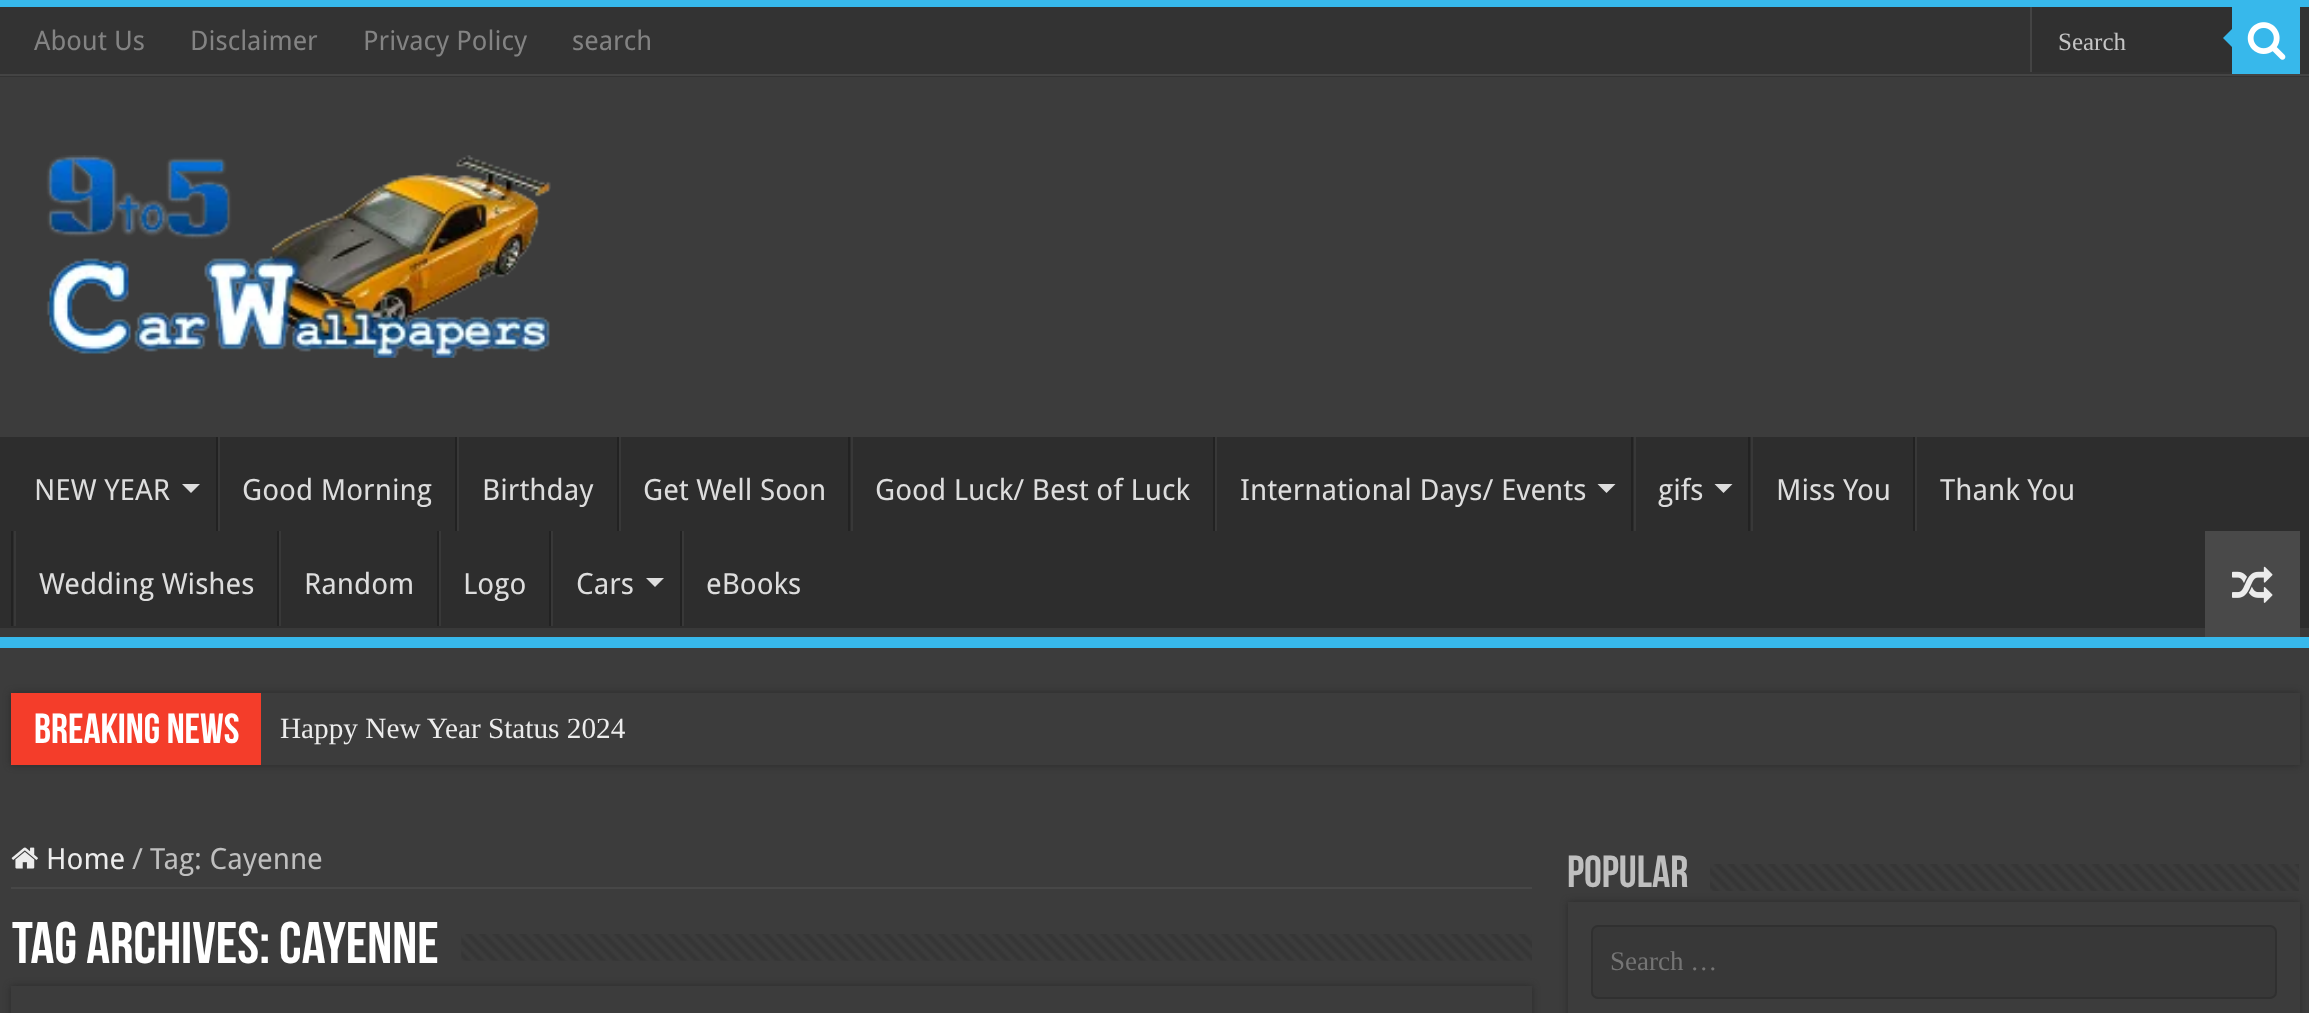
<!DOCTYPE html>
<meta charset="utf-8">
<style>body { margin: 0 } canvas { display: block }</style>
<canvas id="canvas" width="2309" height="1013"></canvas>
<script type="module">
  const canvas = document.getElementById("canvas");
  const ctx = canvas.getContext("2d");
  ctx.miterLimit = 4;
  ctx.fontKerning = "normal";
  async function loadImage(src) {
    const img = new Image();
    img.src = src;
    await img.decode();
    return img;
  }

  ctx.fillStyle = "#3c3c3c";
  ctx.fillRect(0, 0, 2309, 1013);
  ctx.fillStyle = "#37b8eb";
  ctx.fillRect(0, 0, 2309, 7);
  ctx.fillStyle = "#333333";
  ctx.fillRect(0, 7, 2309, 70);
  ctx.fillStyle = "#444444";
  ctx.fillRect(0, 74, 2309, 2);
  ctx.font = "27px Droid Sans";
  ctx.fillStyle = "#838383";
  ctx.fillText("About Us", 34, 50);
  ctx.fillText("Disclaimer", 190, 50);
  ctx.fillText("Privacy Policy", 363, 50);
  ctx.fillText("search", 572, 50);
  ctx.fillStyle = "#303030";
  ctx.fillRect(2032, 7, 200, 65);
  ctx.fillStyle = "#444444";
  ctx.fillRect(2030, 7, 2, 65);
  ctx.font = "25px Liberation Serif";
  ctx.fillStyle = "#c5c5c5";
  ctx.fillText("Search", 2058, 50);
  ctx.fillStyle = "#37b8eb";
  ctx.fillRect(2232, 7, 68, 67);
  ctx.drawImage(await loadImage("img1.png"), 2247, 22, 39, 38);
  ctx.beginPath();
  ctx.moveTo(2232, 29);
  ctx.lineTo(2232, 47);
  ctx.lineTo(2223, 38);
  ctx.closePath();
  ctx.fill();
  ctx.drawImage(await loadImage("img2.png"), 46, 155, 505, 203);
  ctx.fillStyle = "#2d2d2d";
  ctx.fillRect(0, 437, 2309, 191);
  ctx.save();
  ctx.beginPath();
  ctx.rect(0, 437, 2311, 200);
  ctx.clip();
  ctx.fillStyle = "#393939";
  ctx.beginPath();
  ctx.moveTo(-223, 214);
  ctx.lineTo(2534, 214);
  ctx.lineTo(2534, 860);
  ctx.lineTo(-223, 860);
  ctx.closePath();
  ctx.moveTo(-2, 423);
  ctx.lineTo(2308, 423);
  ctx.bezierCurveTo(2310, 423, 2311, 424, 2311, 425);
  ctx.lineTo(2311, 626);
  ctx.bezierCurveTo(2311, 627, 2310, 628, 2308, 628);
  ctx.lineTo(-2, 628);
  ctx.bezierCurveTo(-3, 628, -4, 627, -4, 626);
  ctx.lineTo(-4, 425);
  ctx.bezierCurveTo(-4, 424, -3, 423, -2, 423);
  ctx.closePath();
  ctx.fill("evenodd");
  ctx.restore();
  ctx.fillStyle = "#37b8eb";
  ctx.fillRect(0, 637, 2309, 11);
  ctx.font = "29.25px Droid Sans";
  ctx.fillStyle = "#dddddd";
  ctx.fillText("NEW YEAR", 34, 500);
  ctx.beginPath();
  ctx.moveTo(182, 484);
  ctx.lineTo(200, 484);
  ctx.lineTo(191, 493);
  ctx.closePath();
  ctx.fill();
  ctx.fillStyle = "#222222";
  ctx.fillRect(216, 437, 2, 94);
  ctx.fillStyle = "#383838";
  ctx.fillRect(218, 437, 2, 94);
  ctx.fillStyle = "#dddddd";
  ctx.fillText("Good Morning", 242, 500);
  ctx.fillStyle = "#222222";
  ctx.fillRect(455, 437, 2, 94);
  ctx.fillStyle = "#383838";
  ctx.fillRect(457, 437, 2, 94);
  ctx.fillStyle = "#dddddd";
  ctx.fillText("Birthday", 482, 500);
  ctx.fillStyle = "#222222";
  ctx.fillRect(617, 437, 2, 94);
  ctx.fillStyle = "#383838";
  ctx.fillRect(619, 437, 2, 94);
  ctx.fillStyle = "#dddddd";
  ctx.fillText("Get Well Soon", 643, 500);
  ctx.fillStyle = "#222222";
  ctx.fillRect(848, 437, 2, 94);
  ctx.fillStyle = "#383838";
  ctx.fillRect(851, 437, 2, 94);
  ctx.fillStyle = "#dddddd";
  ctx.fillText("Good Luck/ Best of Luck", 875, 500);
  ctx.fillStyle = "#222222";
  ctx.fillRect(1213, 437, 2, 94);
  ctx.fillStyle = "#383838";
  ctx.fillRect(1215, 437, 2, 94);
  ctx.fillStyle = "#dddddd";
  ctx.fillText("International Days/ Events", 1240, 500);
  ctx.beginPath();
  ctx.moveTo(1597.5, 484);
  ctx.lineTo(1615.5, 484);
  ctx.lineTo(1606.5, 493);
  ctx.closePath();
  ctx.fill();
  ctx.fillStyle = "#222222";
  ctx.fillRect(1631, 437, 2, 94);
  ctx.fillStyle = "#383838";
  ctx.fillRect(1634, 437, 2, 94);
  ctx.fillStyle = "#dddddd";
  ctx.fillText("gifs", 1658, 500);
  ctx.beginPath();
  ctx.moveTo(1714.5, 484);
  ctx.lineTo(1732.5, 484);
  ctx.lineTo(1723.5, 493);
  ctx.closePath();
  ctx.fill();
  ctx.fillStyle = "#222222";
  ctx.fillRect(1748, 437, 2, 94);
  ctx.fillStyle = "#383838";
  ctx.fillRect(1751, 437, 2, 94);
  ctx.fillStyle = "#dddddd";
  ctx.fillText("Miss You", 1776, 500);
  ctx.fillStyle = "#222222";
  ctx.fillRect(1913, 437, 2, 94);
  ctx.fillStyle = "#383838";
  ctx.fillRect(1915, 437, 2, 94);
  ctx.fillStyle = "#dddddd";
  ctx.fillText("Thank You", 1940, 500);
  ctx.fillStyle = "#222222";
  ctx.fillRect(11, 531, 2, 95);
  ctx.fillStyle = "#383838";
  ctx.fillRect(14, 531, 2, 95);
  ctx.fillStyle = "#dddddd";
  ctx.fillText("Wedding Wishes", 39, 594);
  ctx.fillStyle = "#222222";
  ctx.fillRect(277, 531, 2, 95);
  ctx.fillStyle = "#383838";
  ctx.fillRect(279, 531, 2, 95);
  ctx.fillStyle = "#dddddd";
  ctx.fillText("Random", 304, 594);
  ctx.fillStyle = "#222222";
  ctx.fillRect(437, 531, 2, 95);
  ctx.fillStyle = "#383838";
  ctx.fillRect(439, 531, 2, 95);
  ctx.fillStyle = "#dddddd";
  ctx.fillText("Logo", 463, 594);
  ctx.fillStyle = "#222222";
  ctx.fillRect(549, 531, 2, 95);
  ctx.fillStyle = "#383838";
  ctx.fillRect(551, 531, 2, 95);
  ctx.fillStyle = "#dddddd";
  ctx.fillText("Cars", 576, 594);
  ctx.beginPath();
  ctx.moveTo(646, 578);
  ctx.lineTo(664, 578);
  ctx.lineTo(655, 587);
  ctx.closePath();
  ctx.fill();
  ctx.fillStyle = "#222222";
  ctx.fillRect(680, 531, 2, 95);
  ctx.fillStyle = "#383838";
  ctx.fillRect(682, 531, 2, 95);
  ctx.fillStyle = "#dddddd";
  ctx.fillText("eBooks", 706, 594);
  ctx.fillStyle = "#494949";
  ctx.fillRect(2205, 531, 95, 106);
  ctx.drawImage(await loadImage("img3.png"), 2232, 566, 41, 37);
  ctx.fillStyle = "#2a2a2a";
  ctx.filter = "blur(3.5px)";
  ctx.beginPath();
  ctx.rect(11, 693, 2289, 72);
  ctx.fill();
  ctx.filter = "none";
  ctx.fillStyle = "#3c3c3c";
  ctx.fillRect(261, 693, 2039, 72);
  ctx.fillStyle = "#f43d2a";
  ctx.fillRect(11, 693, 250, 72);
  ctx.font = "bold 42px Bebas Neue";
  ctx.fillStyle = "#ffffff";
  ctx.fillText("Breaking News", 34, 743);
  ctx.font = "29.25px Liberation Serif";
  ctx.fillStyle = "#ececec";
  ctx.fillText("Happy New Year Status 2024", 280, 738);
  ctx.fillStyle = "#474747";
  ctx.fillRect(11, 887, 1521, 2);
  ctx.drawImage(await loadImage("img4.png"), 11, 847, 27, 22);
  ctx.font = "29.25px Droid Sans";
  ctx.fillStyle = "#ececec";
  ctx.fillText("Home", 46, 869);
  ctx.fillStyle = "#bfbfbf";
  ctx.fillText("/", 132, 869);
  ctx.fillText("Tag: Cayenne", 150, 869);
  ctx.font = "bold 58.5px Bebas Neue";
  ctx.fillStyle = "#ffffff";
  ctx.fillText("Tag Archives: Cayenne", 12, 963);
  ctx.drawImage(await loadImage("img5.png"), 461, 934, 1071, 27);
  ctx.fillStyle = "#2a2a2a";
  ctx.filter = "blur(3.5px)";
  ctx.beginPath();
  ctx.rect(11, 986, 1521, 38);
  ctx.fill();
  ctx.filter = "none";
  ctx.fillStyle = "#3c3c3c";
  ctx.fillRect(11, 986, 1521, 27);
  ctx.font = "bold 45px Bebas Neue";
  ctx.fillStyle = "#bfbfbf";
  ctx.fillText("popular", 1567, 887);
  ctx.fillStyle = "#2a2a2a";
  ctx.filter = "blur(3.5px)";
  ctx.beginPath();
  ctx.rect(1568, 902, 732, 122);
  ctx.fill();
  ctx.filter = "none";
  ctx.drawImage(await loadImage("img6.png"), 1710, 864, 589, 27);
  ctx.fillStyle = "#3c3c3c";
  ctx.fillRect(1568, 902, 732, 111);
  ctx.fillStyle = "#383838";
  ctx.beginPath();
  ctx.roundRect(1592, 926, 684, 72, 6);
  ctx.fill();
  ctx.strokeStyle = "#303030";
  ctx.lineWidth = 2;
  ctx.stroke();
  ctx.font = "27px Liberation Serif";
  ctx.fillStyle = "#757575";
  ctx.fillText("Search …", 1610, 970);
</script>
